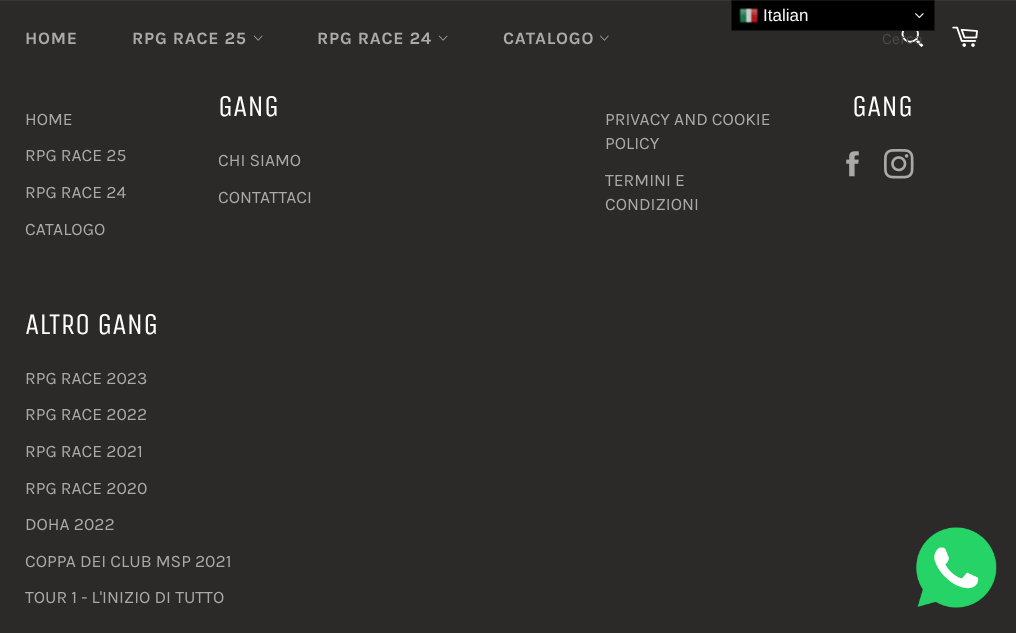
<!DOCTYPE html>
<meta charset="utf-8">
<style>body { margin: 0 } canvas { display: block }</style>
<canvas id="canvas" width="1016" height="633"></canvas>
<script type="module">
  const canvas = document.getElementById("canvas");
  const ctx = canvas.getContext("2d");
  ctx.miterLimit = 4;
  ctx.fontKerning = "normal";
  async function loadImage(src) {
    const img = new Image();
    img.src = src;
    await img.decode();
    return img;
  }

  ctx.fillStyle = "#2b2a29";
  ctx.fillRect(0, 0, 1016, 633);
  ctx.fillStyle = "#383735";
  ctx.fillRect(0, 0, 1016, 1);
  ctx.fillStyle = "#000000";
  ctx.beginPath();
  ctx.rect(731.5, 0.5, 203, 30);
  ctx.fill();
  ctx.strokeStyle = "#161616";
  ctx.stroke();
  ctx.drawImage(await loadImage("img1.png"), 739, 8, 20, 16);
  ctx.font = "17px Liberation Sans";
  ctx.fillStyle = "#f7f7f7";
  ctx.fillText("Italian", 763, 21);
  ctx.drawImage(await loadImage("img2.png"), 915, 13, 9, 6);
  ctx.letterSpacing = "0.75px";
  ctx.font = "bold 17.5px Karla";
  ctx.fillStyle = "#aaaaa9";
  ctx.fillText("HOME", 25, 44);
  ctx.fillText("RPG RACE 25", 132, 44);
  ctx.drawImage(await loadImage("img3.png"), 253, 35, 10, 6);
  ctx.fillText("RPG RACE 24", 317, 44);
  ctx.drawImage(await loadImage("img3.png"), 438, 35, 10, 6);
  ctx.fillText("CATALOGO", 503, 44);
  ctx.drawImage(await loadImage("img4.png"), 600, 35, 9, 6);
  ctx.drawImage(await loadImage("img5.png"), 901, 31, 23, 16);
  ctx.letterSpacing = "0px";
  ctx.font = "16px Karla";
  ctx.fillStyle = "#4c4b4a";
  ctx.fillText("Cerca", 882, 44);
  ctx.drawImage(await loadImage("img6.png"), 952, 26, 26, 21);
  ctx.font = "30px Unica One";
  ctx.fillStyle = "#ffffff";
  ctx.fillText("GANG", 218, 116);
  ctx.font = "17.5px Karla";
  ctx.fillStyle = "#aaaaa9";
  ctx.fillText("CHI SIAMO", 218, 166);
  ctx.fillText("CONTATTACI", 218, 203);
  ctx.font = "30px Unica One";
  ctx.fillStyle = "#ffffff";
  ctx.fillText("GANG", 852, 116);
  ctx.drawImage(await loadImage("img7.png"), 846, 151, 13, 26);
  ctx.drawImage(await loadImage("img8.png"), 884, 149, 30, 30);
  ctx.font = "17.5px Karla";
  ctx.fillStyle = "#aaaaa9";
  ctx.fillText("HOME", 25, 125);
  ctx.fillText("RPG RACE 25", 25, 161);
  ctx.fillText("RPG RACE 24", 25, 198);
  ctx.fillText("CATALOGO", 25, 235);
  ctx.fillText("PRIVACY AND COOKIE", 605, 125);
  ctx.fillText("POLICY", 605, 149);
  ctx.fillText("TERMINI E", 605, 186);
  ctx.fillText("CONDIZIONI", 605, 210);
  ctx.font = "30px Unica One";
  ctx.fillStyle = "#ffffff";
  ctx.fillText("ALTRO GANG", 25, 334);
  ctx.font = "17.5px Karla";
  ctx.fillStyle = "#aaaaa9";
  ctx.fillText("RPG RACE 2023", 25, 384);
  ctx.fillText("RPG RACE 2022", 25, 420);
  ctx.fillText("RPG RACE 2021", 25, 457);
  ctx.fillText("RPG RACE 2020", 25, 494);
  ctx.fillText("DOHA 2022", 25, 530);
  ctx.fillText("COPPA DEI CLUB MSP 2021", 25, 567);
  ctx.fillText("TOUR 1 - L'INIZIO DI TUTTO", 25, 603);
  ctx.drawImage(await loadImage("img9.png"), 916, 527, 81, 81);
</script>
